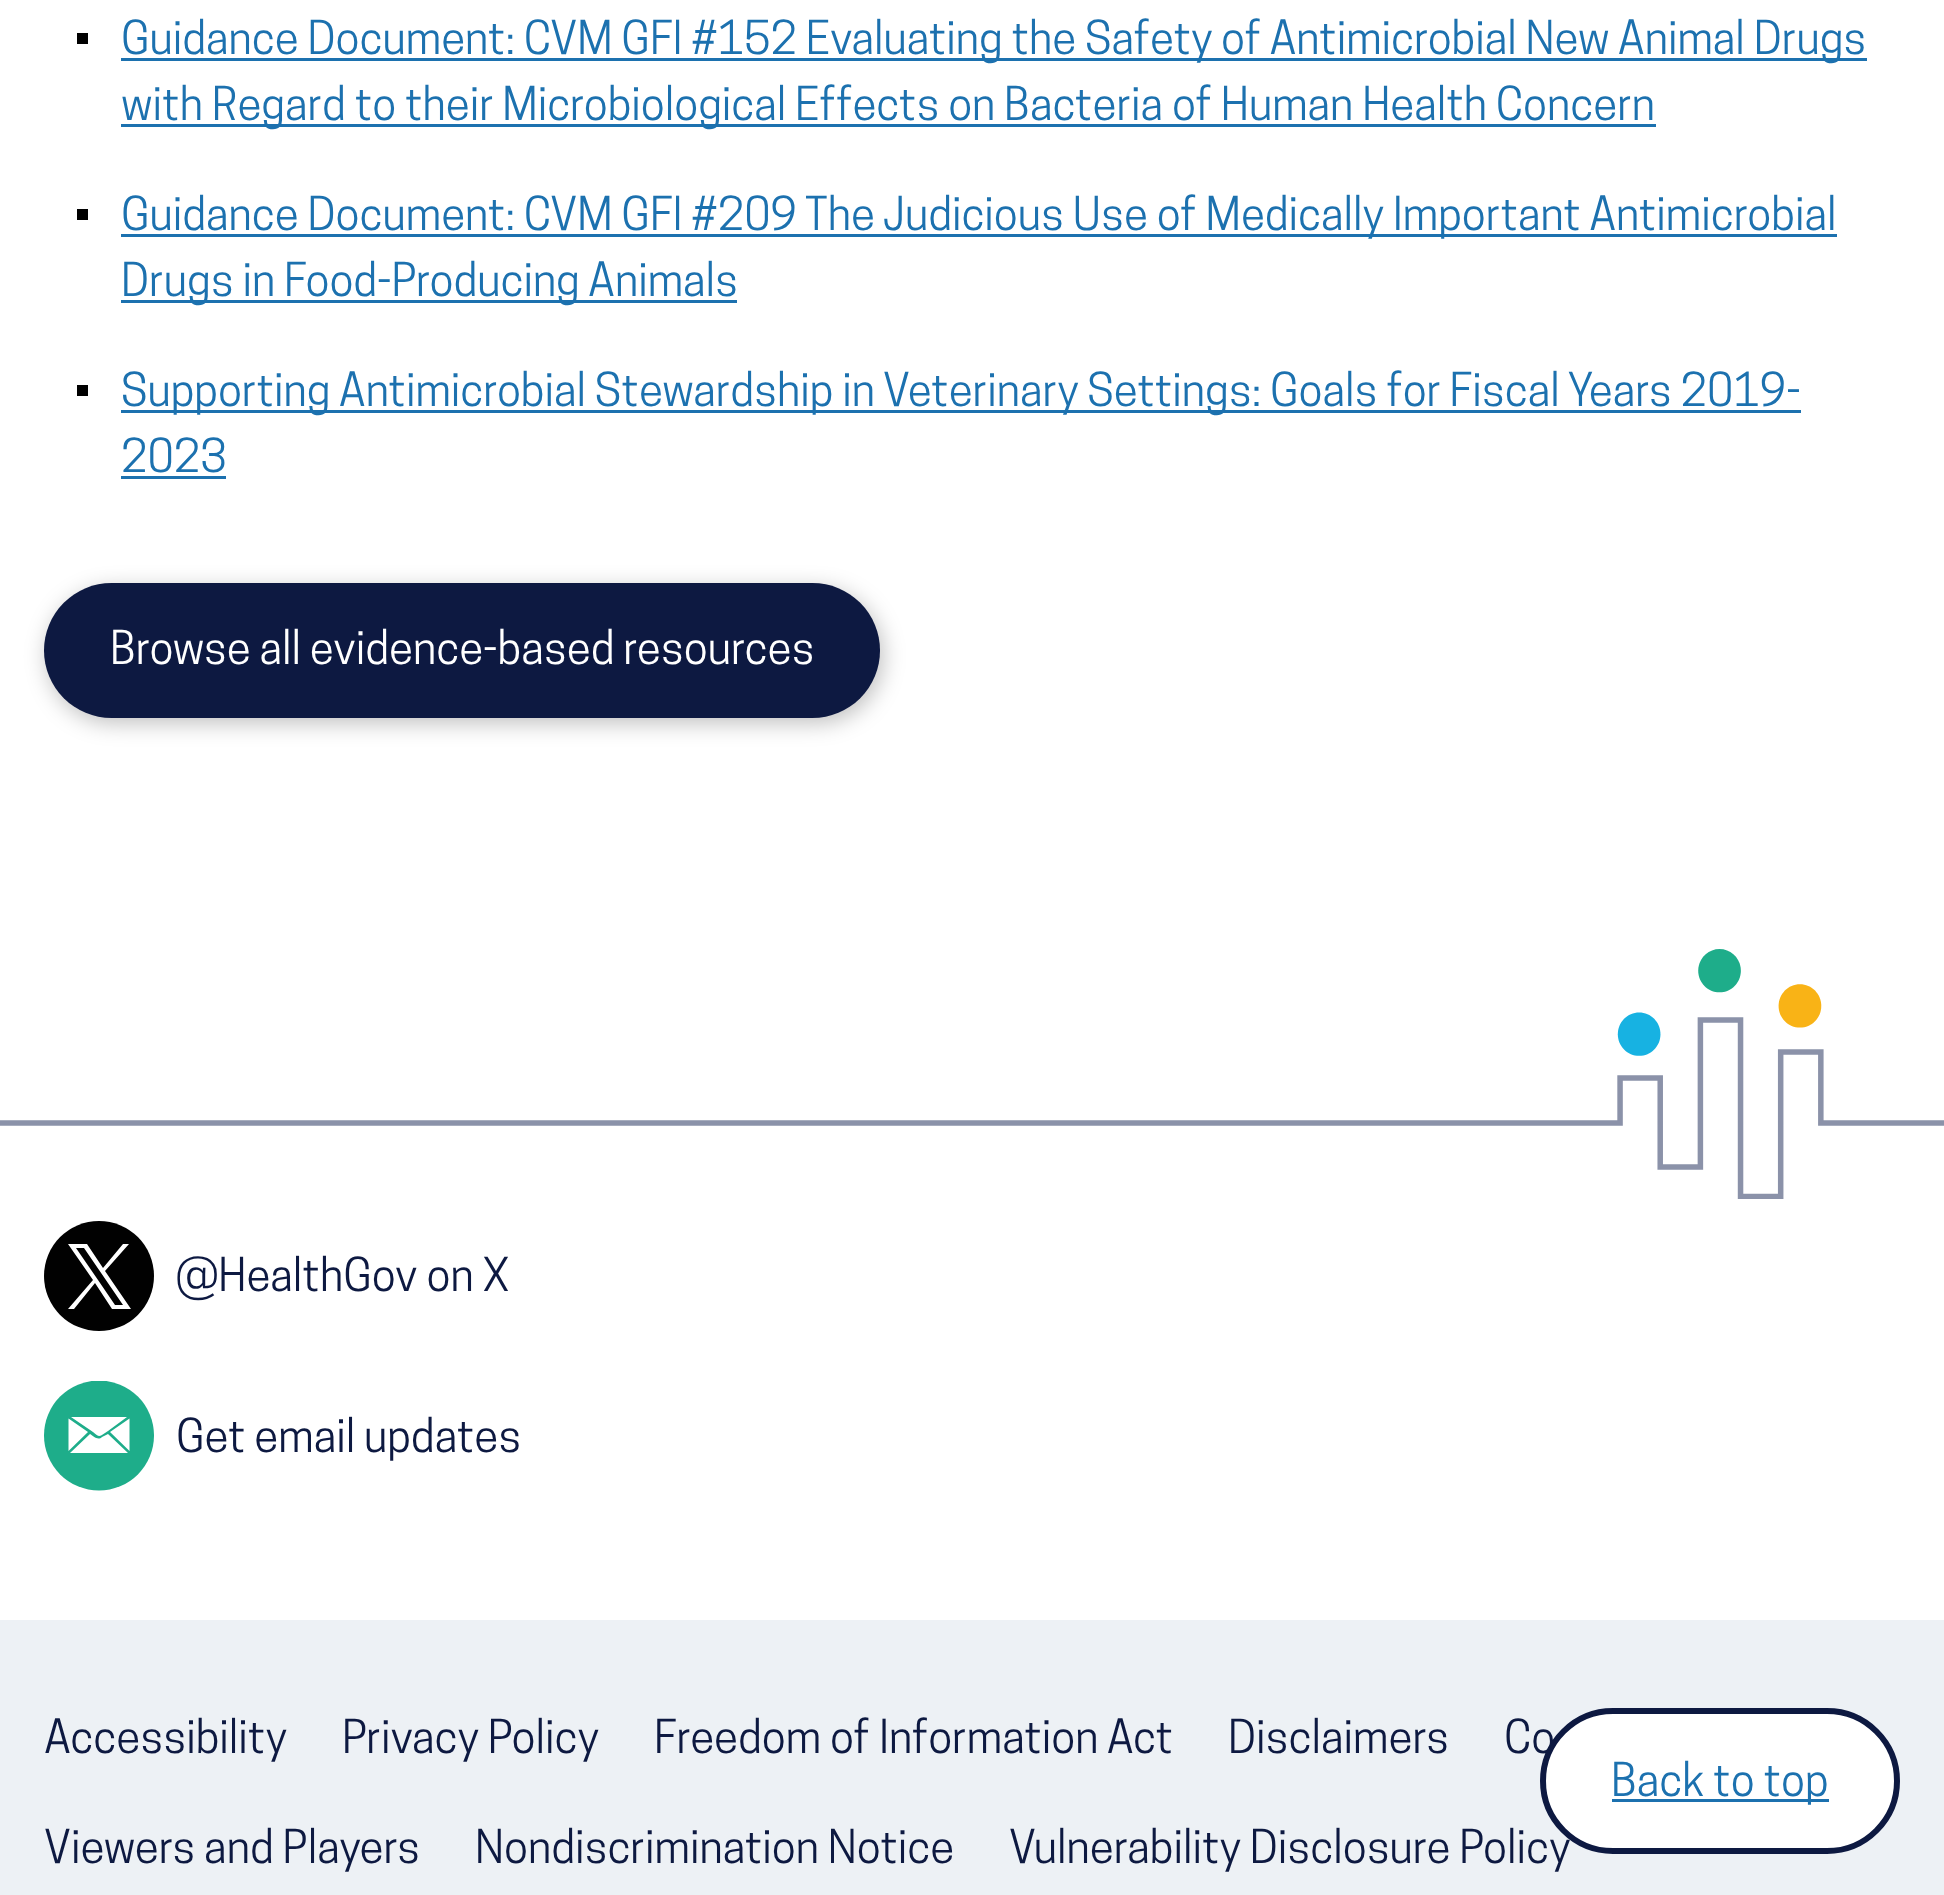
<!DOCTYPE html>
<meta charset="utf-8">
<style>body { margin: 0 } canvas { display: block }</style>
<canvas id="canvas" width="1944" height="1895"></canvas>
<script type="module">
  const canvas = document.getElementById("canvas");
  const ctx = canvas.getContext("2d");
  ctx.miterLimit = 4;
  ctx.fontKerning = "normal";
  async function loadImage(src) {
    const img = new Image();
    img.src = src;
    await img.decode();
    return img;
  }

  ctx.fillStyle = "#ffffff";
  ctx.fillRect(0, 0, 1944, 1895);
  ctx.fillStyle = "#000000";
  ctx.fillRect(77, 33, 11, 11);
  ctx.fillStyle = "#1c71af";
  ctx.fillRect(121, 58, 1746, 3);
  ctx.font = "44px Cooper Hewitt";
  ctx.fillText("Guidance Document: CVM GFI #152 Evaluating the Safety of Antimicrobial New Animal Drugs", 121, 54);
  ctx.fillRect(121, 124, 1535, 3);
  ctx.fillText("with Regard to their Microbiological Effects on Bacteria of Human Health Concern", 121, 120);
  ctx.fillStyle = "#000000";
  ctx.fillRect(77, 209, 11, 11);
  ctx.fillStyle = "#1c71af";
  ctx.fillRect(121, 234, 1716, 3);
  ctx.fillText("Guidance Document: CVM GFI #209 The Judicious Use of Medically Important Antimicrobial", 121, 230);
  ctx.fillRect(121, 300, 616, 3);
  ctx.fillText("Drugs in Food-Producing Animals", 121, 296);
  ctx.fillStyle = "#000000";
  ctx.fillRect(77, 385, 11, 11);
  ctx.fillStyle = "#1c71af";
  ctx.fillRect(121, 410, 1680, 3);
  ctx.fillText("Supporting Antimicrobial Stewardship in Veterinary Settings: Goals for Fiscal Years 2019-", 121, 406);
  ctx.fillText("2023", 121, 472);
  ctx.fillRect(121, 476, 105, 3);
  ctx.fillStyle = "rgba(0, 0, 0, 0.25)";
  ctx.filter = "blur(11px)";
  ctx.beginPath();
  ctx.roundRect(47, 589, 836, 134, 67);
  ctx.fill();
  ctx.filter = "none";
  ctx.fillStyle = "#0d1941";
  ctx.beginPath();
  ctx.roundRect(44, 583, 836, 135, 67.5);
  ctx.fill();
  ctx.fillStyle = "#ffffff";
  ctx.fillText("Browse all evidence-based resources", 110, 664);
  ctx.drawImage(await loadImage("img1.png"), 0, 949, 1944, 250);
  ctx.fillStyle = "#010101";
  ctx.beginPath();
  ctx.arc(99, 1276, 55, 0, Math.PI * 2);
  ctx.fill();
  ctx.fillStyle = "#ffffff";
  ctx.beginPath();
  ctx.moveTo(105, 1271);
  ctx.lineTo(129, 1244);
  ctx.lineTo(123, 1244);
  ctx.lineTo(103, 1268);
  ctx.lineTo(87, 1244);
  ctx.lineTo(68, 1244);
  ctx.lineTo(93, 1280);
  ctx.lineTo(68, 1309);
  ctx.lineTo(74, 1309);
  ctx.lineTo(95, 1283);
  ctx.lineTo(112, 1309);
  ctx.lineTo(131, 1309);
  ctx.closePath();
  ctx.moveTo(98, 1280);
  ctx.lineTo(76, 1248);
  ctx.lineTo(84, 1248);
  ctx.lineTo(123, 1305);
  ctx.lineTo(115, 1305);
  ctx.closePath();
  ctx.fill();
  ctx.fillStyle = "#0d1941";
  ctx.fillText("@HealthGov on X", 176, 1291);
  ctx.save();
  ctx.beginPath();
  ctx.rect(44, 1381, 110, 110);
  ctx.clip();
  ctx.fillStyle = "#1ead8a";
  ctx.beginPath();
  ctx.arc(99, 1435.5, 55, 0, Math.PI * 2);
  ctx.fill();
  ctx.restore();
  ctx.fillStyle = "#ffffff";
  ctx.beginPath();
  ctx.moveTo(68.5, 1418.5);
  ctx.lineTo(68.5, 1451);
  ctx.lineTo(88, 1432);
  ctx.closePath();
  ctx.moveTo(129.5, 1451);
  ctx.lineTo(129.5, 1418.5);
  ctx.lineTo(110, 1432);
  ctx.closePath();
  ctx.fill();
  ctx.beginPath();
  ctx.moveTo(102, 1437);
  ctx.bezierCurveTo(98, 1441, 93, 1436, 90, 1434);
  ctx.lineTo(70, 1453);
  ctx.lineTo(128, 1453);
  ctx.lineTo(108, 1434);
  ctx.closePath();
  ctx.fill();
  ctx.beginPath();
  ctx.moveTo(127, 1417);
  ctx.lineTo(71, 1417);
  ctx.lineTo(93, 1432);
  ctx.bezierCurveTo(99, 1437, 99, 1437, 105, 1433);
  ctx.lineTo(108, 1431);
  ctx.closePath();
  ctx.fill();
  ctx.fillStyle = "#0d1941";
  ctx.fillText("Get email updates", 176, 1452);
  ctx.fillStyle = "#edf1f5";
  ctx.fillRect(0, 1620, 1944, 275);
  ctx.fillStyle = "#0d1941";
  ctx.fillText("Accessibility", 44, 1753);
  ctx.fillText("Privacy Policy", 342, 1753);
  ctx.fillText("Freedom of Information Act", 654, 1753);
  ctx.fillText("Disclaimers", 1228, 1753);
  ctx.fillText("Co", 1504, 1753);
  ctx.fillText("Viewers and Players", 44, 1863);
  ctx.fillText("Nondiscrimination Notice", 475, 1863);
  ctx.fillText("Vulnerability Disclosure Policy", 1009, 1863);
  ctx.fillStyle = "#ffffff";
  ctx.beginPath();
  ctx.roundRect(1543, 1711, 354, 140, 70);
  ctx.fill();
  ctx.strokeStyle = "#0d1941";
  ctx.lineWidth = 6;
  ctx.stroke();
  ctx.fillStyle = "#1c71af";
  ctx.fillRect(1612, 1799, 217, 3);
  ctx.fillText("Back to top", 1611, 1796);
</script>
